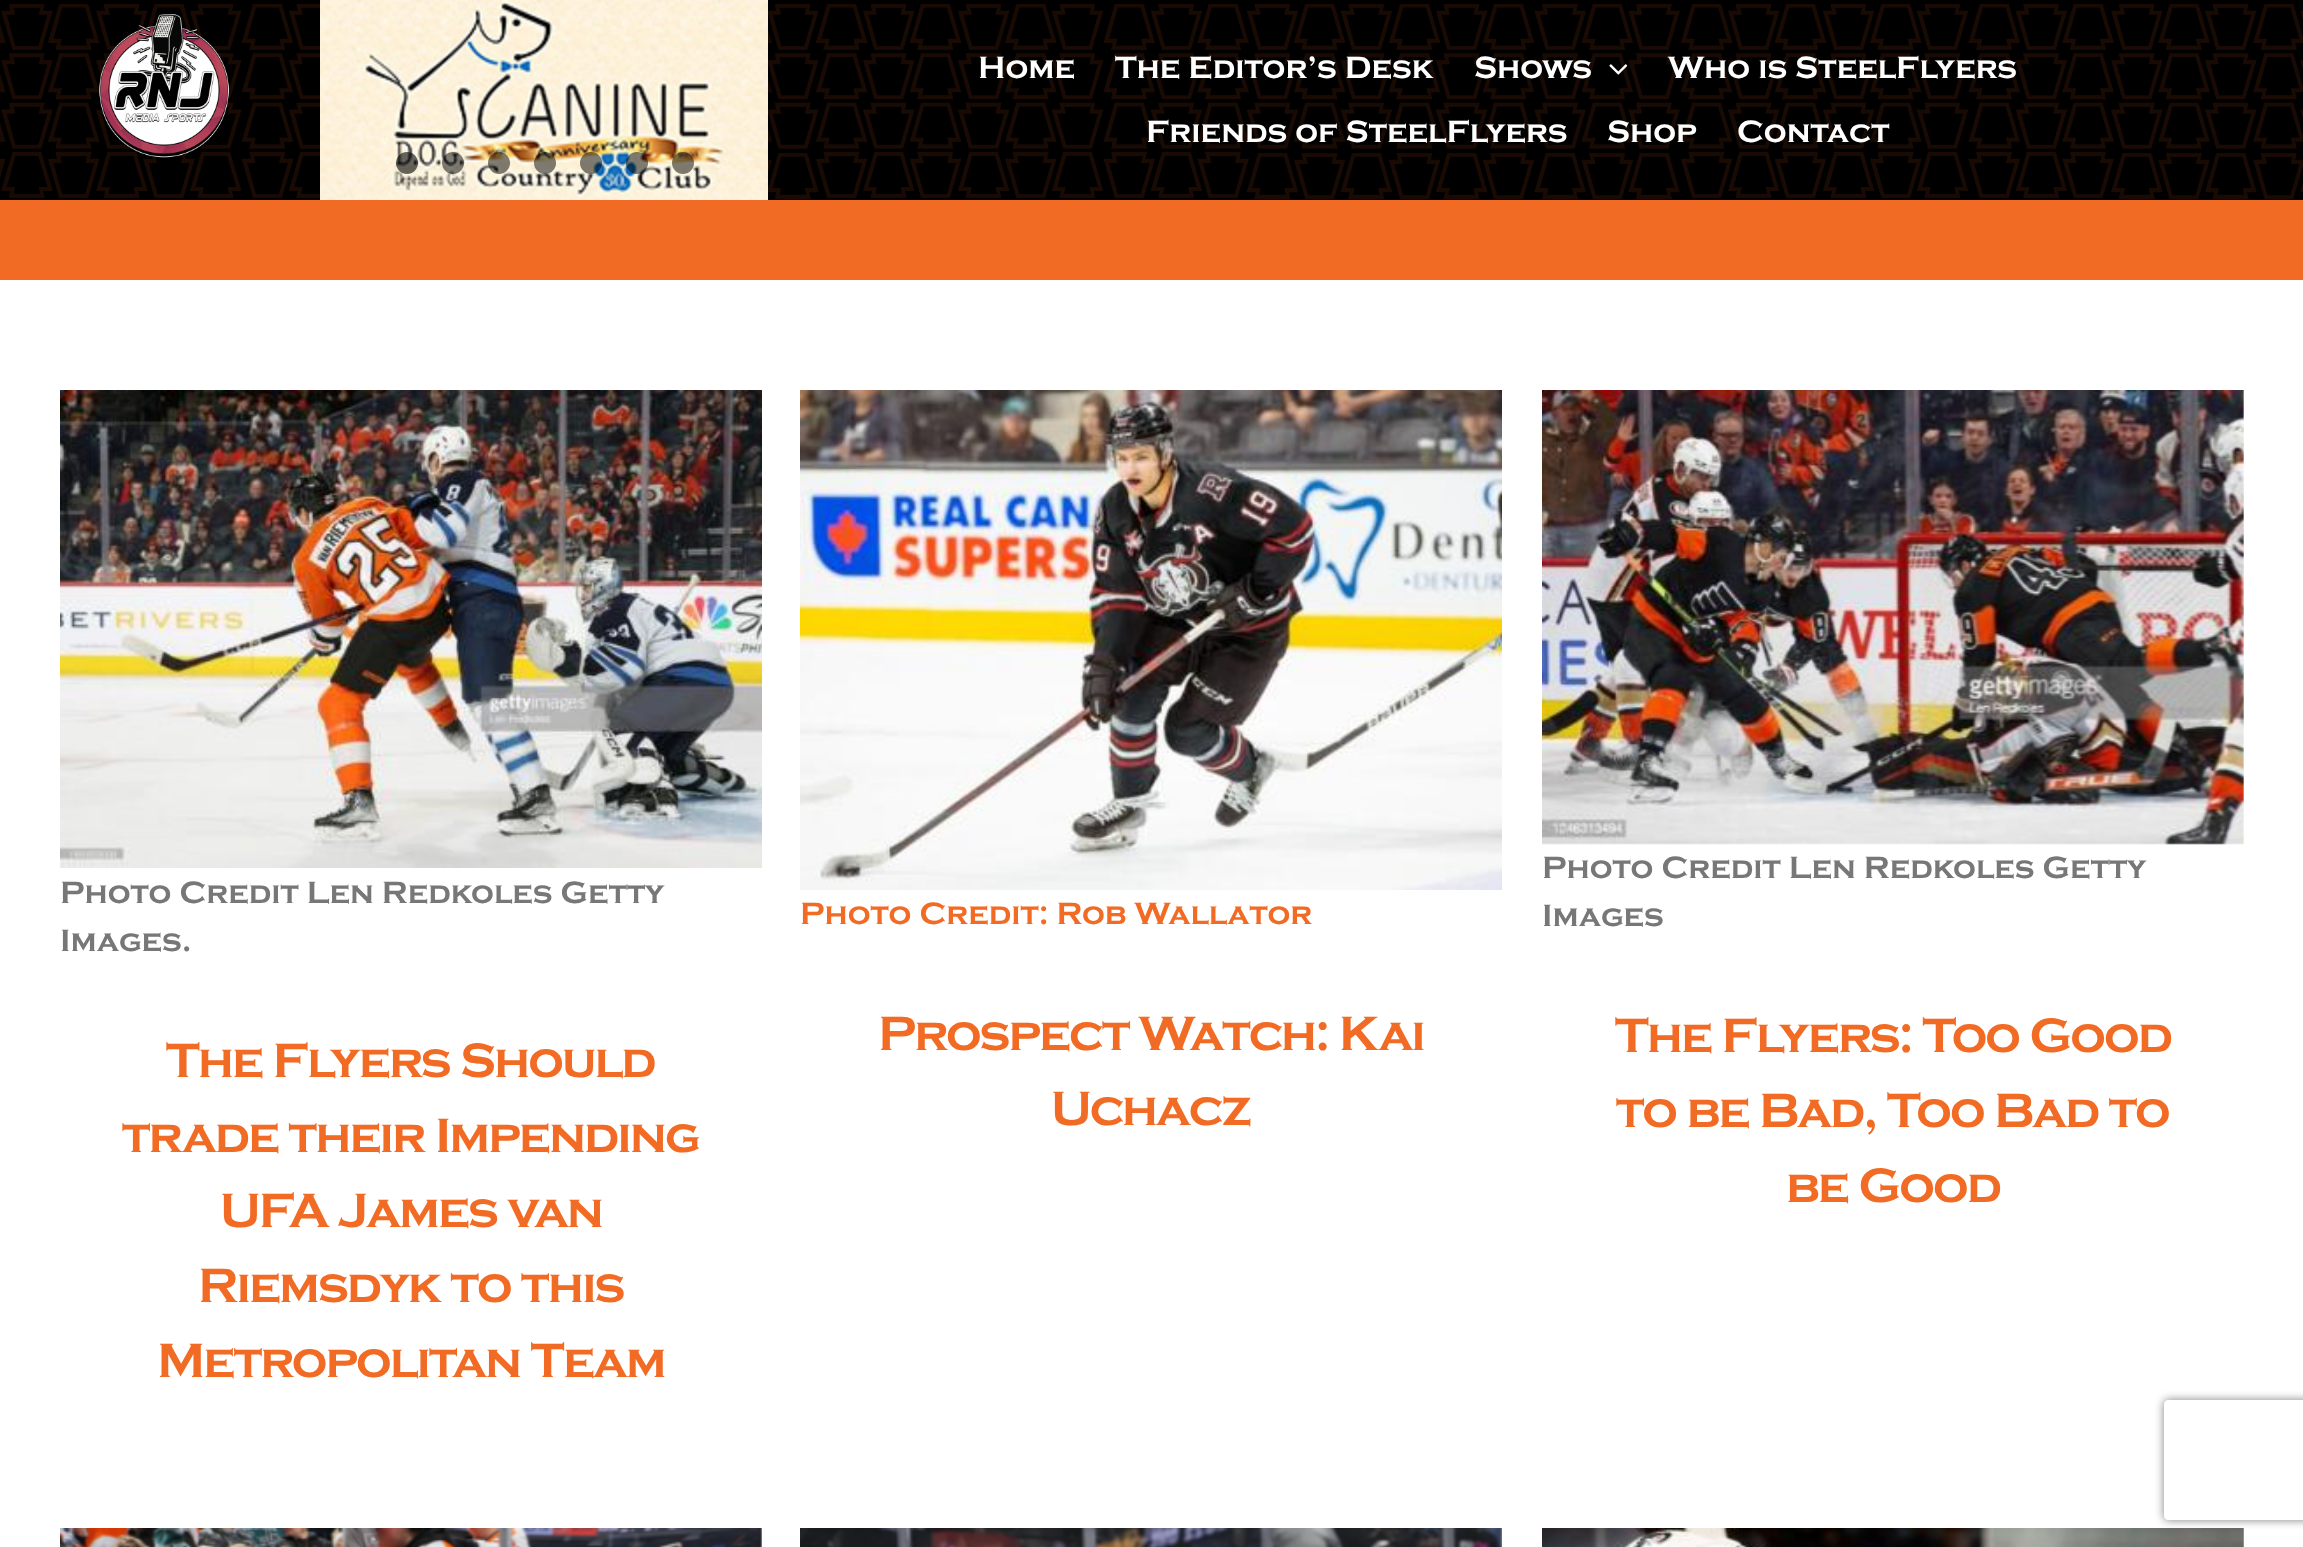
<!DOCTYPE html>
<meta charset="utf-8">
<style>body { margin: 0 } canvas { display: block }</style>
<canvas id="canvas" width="2303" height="1547"></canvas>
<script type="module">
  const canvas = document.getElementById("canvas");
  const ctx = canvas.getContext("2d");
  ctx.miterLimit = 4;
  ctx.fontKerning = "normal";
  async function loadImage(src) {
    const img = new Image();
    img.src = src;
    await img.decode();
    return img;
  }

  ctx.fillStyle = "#ffffff";
  ctx.fillRect(0, 0, 2303, 1547);
  ctx.fillStyle = "#000000";
  ctx.fillRect(0, 0, 2303, 200);
  ctx.drawImage(await loadImage("img1.png"), 0, 4, 2303, 195);
  ctx.drawImage(await loadImage("img2.png"), 99, 14, 130, 144);
  ctx.drawImage(await loadImage("img3.png"), 320, 0, 448, 200);
  ctx.fillStyle = "rgba(0, 0, 0, 0.6)";
  ctx.beginPath();
  ctx.arc(407, 163, 11, 0, Math.PI * 2);
  ctx.fill();
  ctx.fillStyle = "rgba(0, 0, 0, 0.5)";
  ctx.beginPath();
  ctx.arc(453, 163, 11, 0, Math.PI * 2);
  ctx.fill();
  ctx.beginPath();
  ctx.arc(499, 163, 11, 0, Math.PI * 2);
  ctx.fill();
  ctx.beginPath();
  ctx.arc(545, 163, 11, 0, Math.PI * 2);
  ctx.fill();
  ctx.beginPath();
  ctx.arc(591, 163, 11, 0, Math.PI * 2);
  ctx.fill();
  ctx.beginPath();
  ctx.arc(637, 163, 11, 0, Math.PI * 2);
  ctx.fill();
  ctx.beginPath();
  ctx.arc(683, 163, 11, 0, Math.PI * 2);
  ctx.fill();
  ctx.font = "bold 32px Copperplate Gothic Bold";
  ctx.fillStyle = "#ffffff";
  ctx.fillText("Home", 978, 78);
  ctx.fillText("The Editor’s Desk", 1115, 78);
  ctx.fillText("Shows", 1474, 78);
  ctx.drawImage(await loadImage("img4.png"), 1609, 64, 19, 11);
  ctx.fillText("Who is SteelFlyers", 1668, 78);
  ctx.fillText("Friends of SteelFlyers", 1146, 142);
  ctx.fillText("Shop", 1607, 142);
  ctx.fillText("Contact", 1737, 142);
  ctx.fillStyle = "#f16b24";
  ctx.fillRect(0, 200, 2303, 80);
  ctx.drawImage(await loadImage("img5.png"), 60, 390, 702, 478);
  ctx.fillStyle = "#777777";
  ctx.fillText("Photo Credit Len Redkoles Getty", 60, 903);
  ctx.fillText("Images.", 60, 951);
  ctx.letterSpacing = "-2px";
  ctx.font = "bold 50px Copperplate Gothic Bold";
  ctx.fillStyle = "#f16b24";
  ctx.fillText("The Flyers Should", 166, 1077);
  ctx.fillText("trade their Impending", 122, 1152);
  ctx.fillText("UFA James van", 220, 1227);
  ctx.fillText("Riemsdyk to this", 198, 1302);
  ctx.fillText("Metropolitan Team", 157, 1377);
  ctx.drawImage(await loadImage("img6.png"), 800, 390, 702, 500);
  ctx.letterSpacing = "0px";
  ctx.font = "bold 32px Copperplate Gothic Bold";
  ctx.fillText("Photo Credit: Rob Wallator", 800, 924);
  ctx.letterSpacing = "-2px";
  ctx.font = "bold 50px Copperplate Gothic Bold";
  ctx.fillText("Prospect Watch: Kai", 878, 1050);
  ctx.fillText("Uchacz", 1051, 1125);
  ctx.drawImage(await loadImage("img7.png"), 1542, 390, 702, 455);
  ctx.letterSpacing = "0px";
  ctx.font = "bold 32px Copperplate Gothic Bold";
  ctx.fillStyle = "#777777";
  ctx.fillText("Photo Credit Len Redkoles Getty", 1542, 878);
  ctx.fillText("Images", 1542, 926);
  ctx.letterSpacing = "-2px";
  ctx.font = "bold 50px Copperplate Gothic Bold";
  ctx.fillStyle = "#f16b24";
  ctx.fillText("The Flyers: Too Good", 1615, 1052);
  ctx.fillText("to be Bad, Too Bad to", 1616, 1127);
  ctx.fillText("be Good", 1786, 1202);
  ctx.drawImage(await loadImage("img8.png"), 60, 1528, 702, 19);
  ctx.drawImage(await loadImage("img9.png"), 800, 1528, 702, 19);
  ctx.save();
  ctx.beginPath();
  ctx.moveTo(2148, 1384);
  ctx.lineTo(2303, 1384);
  ctx.lineTo(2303, 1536);
  ctx.lineTo(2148, 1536);
  ctx.closePath();
  ctx.moveTo(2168, 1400);
  ctx.lineTo(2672, 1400);
  ctx.bezierCurveTo(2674, 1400, 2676, 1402, 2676, 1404);
  ctx.lineTo(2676, 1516);
  ctx.bezierCurveTo(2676, 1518, 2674, 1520, 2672, 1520);
  ctx.lineTo(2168, 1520);
  ctx.bezierCurveTo(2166, 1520, 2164, 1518, 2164, 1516);
  ctx.lineTo(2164, 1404);
  ctx.bezierCurveTo(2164, 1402, 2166, 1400, 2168, 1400);
  ctx.closePath();
  ctx.clip("evenodd");
  ctx.fillStyle = "#808080";
  ctx.filter = "blur(5px)";
  ctx.beginPath();
  ctx.roundRect(2164, 1400, 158, 120, 4);
  ctx.fill();
  ctx.filter = "none";
  ctx.restore();
  ctx.drawImage(await loadImage("img10.png"), 1542, 1528, 702, 19);
</script>
